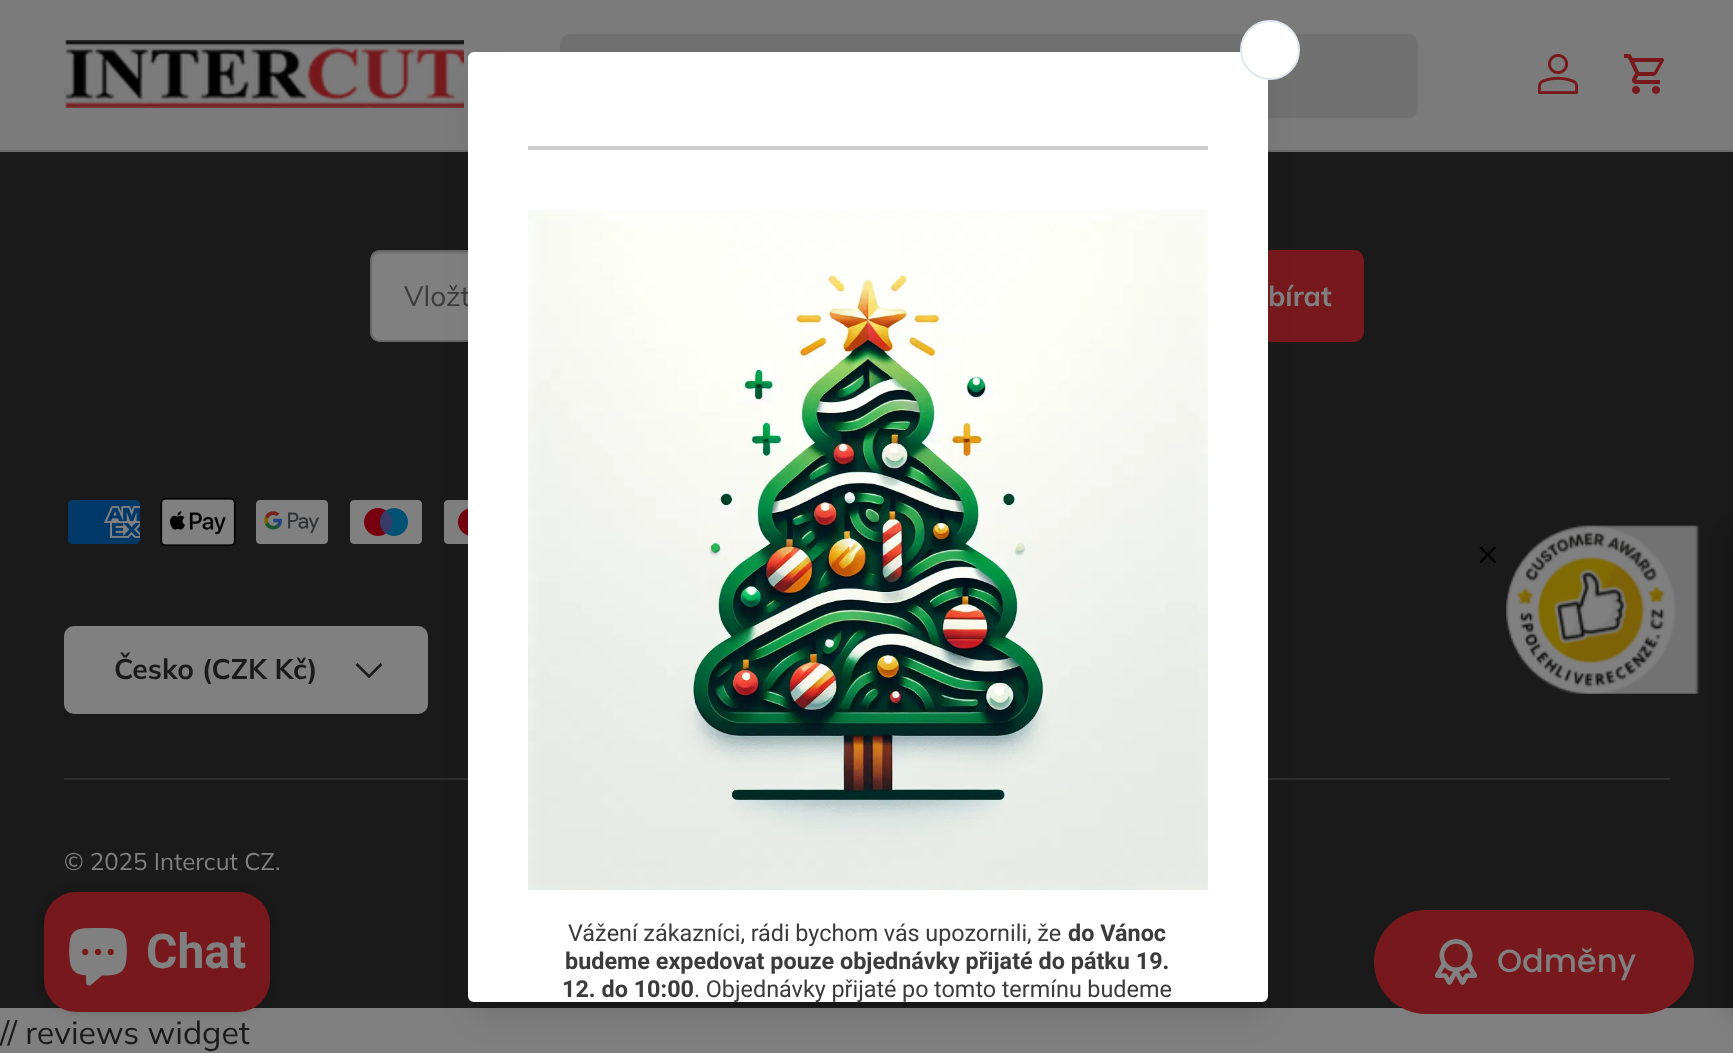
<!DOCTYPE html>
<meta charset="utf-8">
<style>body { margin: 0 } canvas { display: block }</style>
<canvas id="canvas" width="1733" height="1053"></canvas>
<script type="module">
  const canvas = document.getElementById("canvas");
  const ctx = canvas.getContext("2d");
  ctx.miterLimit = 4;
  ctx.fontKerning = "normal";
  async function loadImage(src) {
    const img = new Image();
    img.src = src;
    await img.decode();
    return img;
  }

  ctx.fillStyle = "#808080";
  ctx.fillRect(0, 0, 1733, 1053);
  ctx.fillStyle = "#7b7b7b";
  ctx.fillRect(0, 0, 1733, 150);
  ctx.fillStyle = "#6c6c6c";
  ctx.fillRect(0, 150, 1733, 2);
  ctx.drawImage(await loadImage("img1.png"), 64, 40, 400, 68);
  ctx.fillStyle = "#717171";
  ctx.beginPath();
  ctx.roundRect(560, 34, 858, 84, 10);
  ctx.fill();
  ctx.drawImage(await loadImage("img2.png"), 1538, 54, 40, 40);
  ctx.drawImage(await loadImage("img3.png"), 1624, 54, 40, 40);
  ctx.fillStyle = "#1a1a1a";
  ctx.fillRect(0, 152, 1733, 856);
  ctx.fillStyle = "#808080";
  ctx.beginPath();
  ctx.roundRect(370, 250, 792, 92, 10);
  ctx.fill();
  ctx.fillStyle = "#767676";
  ctx.beginPath();
  ctx.moveTo(380, 254);
  ctx.lineTo(1152, 254);
  ctx.bezierCurveTo(1156, 254, 1160, 258, 1160, 262);
  ctx.bezierCurveTo(1160, 257, 1158, 252, 1152, 252);
  ctx.lineTo(380, 252);
  ctx.bezierCurveTo(374, 252, 372, 257, 372, 262);
  ctx.bezierCurveTo(372, 258, 376, 254, 380, 254);
  ctx.closePath();
  ctx.fill();
  ctx.beginPath();
  ctx.roundRect(371, 251, 790, 90, 9);
  ctx.strokeStyle = "#666666";
  ctx.lineWidth = 2;
  ctx.stroke();
  ctx.font = "28px Muli";
  ctx.fillStyle = "#3b3b3b";
  ctx.fillText("Vložt", 404, 306);
  ctx.fillStyle = "#77191c";
  ctx.beginPath();
  ctx.roundRect(1182, 250, 182, 92, 10);
  ctx.fill();
  ctx.font = "bold 28px Muli";
  ctx.fillStyle = "#808080";
  ctx.fillText("bírat", 1268, 306);
  ctx.drawImage(await loadImage("img4.png"), 68, 500, 72, 44);
  ctx.drawImage(await loadImage("img5.png"), 160, 498, 76, 48);
  ctx.drawImage(await loadImage("img6.png"), 256, 500, 72, 44);
  ctx.drawImage(await loadImage("img7.png"), 350, 500, 72, 44);
  ctx.drawImage(await loadImage("img8.png"), 444, 500, 24, 44);
  ctx.beginPath();
  ctx.roundRect(64, 626, 364, 88, 10);
  ctx.fill();
  ctx.beginPath();
  ctx.roundRect(65, 627, 362, 86, 9);
  ctx.strokeStyle = "rgba(128, 128, 128, 0.2)";
  ctx.stroke();
  ctx.font = "bold 28.25px Muli";
  ctx.fillStyle = "#1a1a1a";
  ctx.fillText("Česko (CZK Kč)", 114, 679);
  ctx.beginPath();
  ctx.moveTo(381.5, 664);
  ctx.lineTo(369, 676.5);
  ctx.lineTo(356.5, 664);
  ctx.strokeStyle = "#1a1a1a";
  ctx.lineWidth = 2.5;
  ctx.stroke();
  ctx.fillStyle = "#2e2e2e";
  ctx.fillRect(64, 778, 1606, 2);
  ctx.font = "24px Muli";
  ctx.fillStyle = "#808080";
  ctx.fillText("© 2025 Intercut CZ.", 64, 870);
  ctx.font = "32px Muli";
  ctx.fillStyle = "#1a1a1a";
  ctx.fillText("// reviews widget", 0, 1044);
  ctx.font = "36px Muli";
  ctx.fillStyle = "#000000";
  ctx.fillText("×", 1477, 565);
  ctx.fillStyle = "rgba(0, 0, 0, 0.2)";
  ctx.filter = "blur(10px)";
  ctx.beginPath();
  ctx.rect(1730, 534, 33, 480);
  ctx.fill();
  ctx.filter = "none";
  ctx.drawImage(await loadImage("img9.png"), 1506, 525, 194, 169);
  ctx.fillStyle = "rgba(0, 0, 0, 0.15)";
  ctx.filter = "blur(5px)";
  ctx.beginPath();
  ctx.roundRect(44, 892, 226, 120, 32);
  ctx.fill();
  ctx.filter = "none";
  ctx.fillStyle = "#77191c";
  ctx.beginPath();
  ctx.roundRect(44, 892, 226, 120, 32);
  ctx.fill();
  ctx.drawImage(await loadImage("img10.png"), 69, 928, 58, 58);
  ctx.font = "bold 48px Roboto";
  ctx.fillStyle = "#808080";
  ctx.fillText("Chat", 146, 968);
  ctx.fillStyle = "rgba(0, 0, 0, 0.1)";
  ctx.filter = "blur(15px)";
  ctx.beginPath();
  ctx.rect(474, 78, 788, 938);
  ctx.fill();
  ctx.filter = "none";
  ctx.fillStyle = "#ffffff";
  ctx.beginPath();
  ctx.roundRect(468, 52, 800, 950, 6);
  ctx.fill();
  ctx.beginPath();
  ctx.arc(1270, 50, 29, 0, Math.PI * 2);
  ctx.fill();
  ctx.strokeStyle = "#e2e8f0";
  ctx.lineWidth = 2;
  ctx.stroke();
  ctx.fillStyle = "#cdcdcd";
  ctx.fillRect(528, 146, 680, 4);
  ctx.drawImage(await loadImage("img11.png"), 528, 210, 680, 680);
  ctx.wordSpacing = "-0.25px";
  ctx.font = "23.4px Roboto";
  ctx.fillStyle = "#3b3b3b";
  ctx.fillText("Vážení zákazníci, rádi bychom vás upozornili, že", 568, 941);
  ctx.wordSpacing = "0px";
  ctx.font = "bold 23.4px Roboto";
  ctx.fillText("do Vánoc", 1068, 941);
  ctx.fillText("budeme expedovat pouze objednávky přijaté do pátku 19.", 565, 969);
  ctx.fillText("12. do 10:00", 562, 997);
  ctx.wordSpacing = "-0.25px";
  ctx.font = "23.4px Roboto";
  ctx.fillText(". Objednávky přijaté po tomto termínu budeme", 694, 997);
  ctx.fillStyle = "#77191c";
  ctx.beginPath();
  ctx.roundRect(1374, 910, 320, 104, 52);
  ctx.fill();
  ctx.drawImage(await loadImage("img12.png"), 1434, 939, 44, 46);
  ctx.wordSpacing = "0px";
  ctx.font = "500 32px Poppins";
  ctx.fillStyle = "#808080";
  ctx.fillText("Odměny", 1497, 972);
</script>
